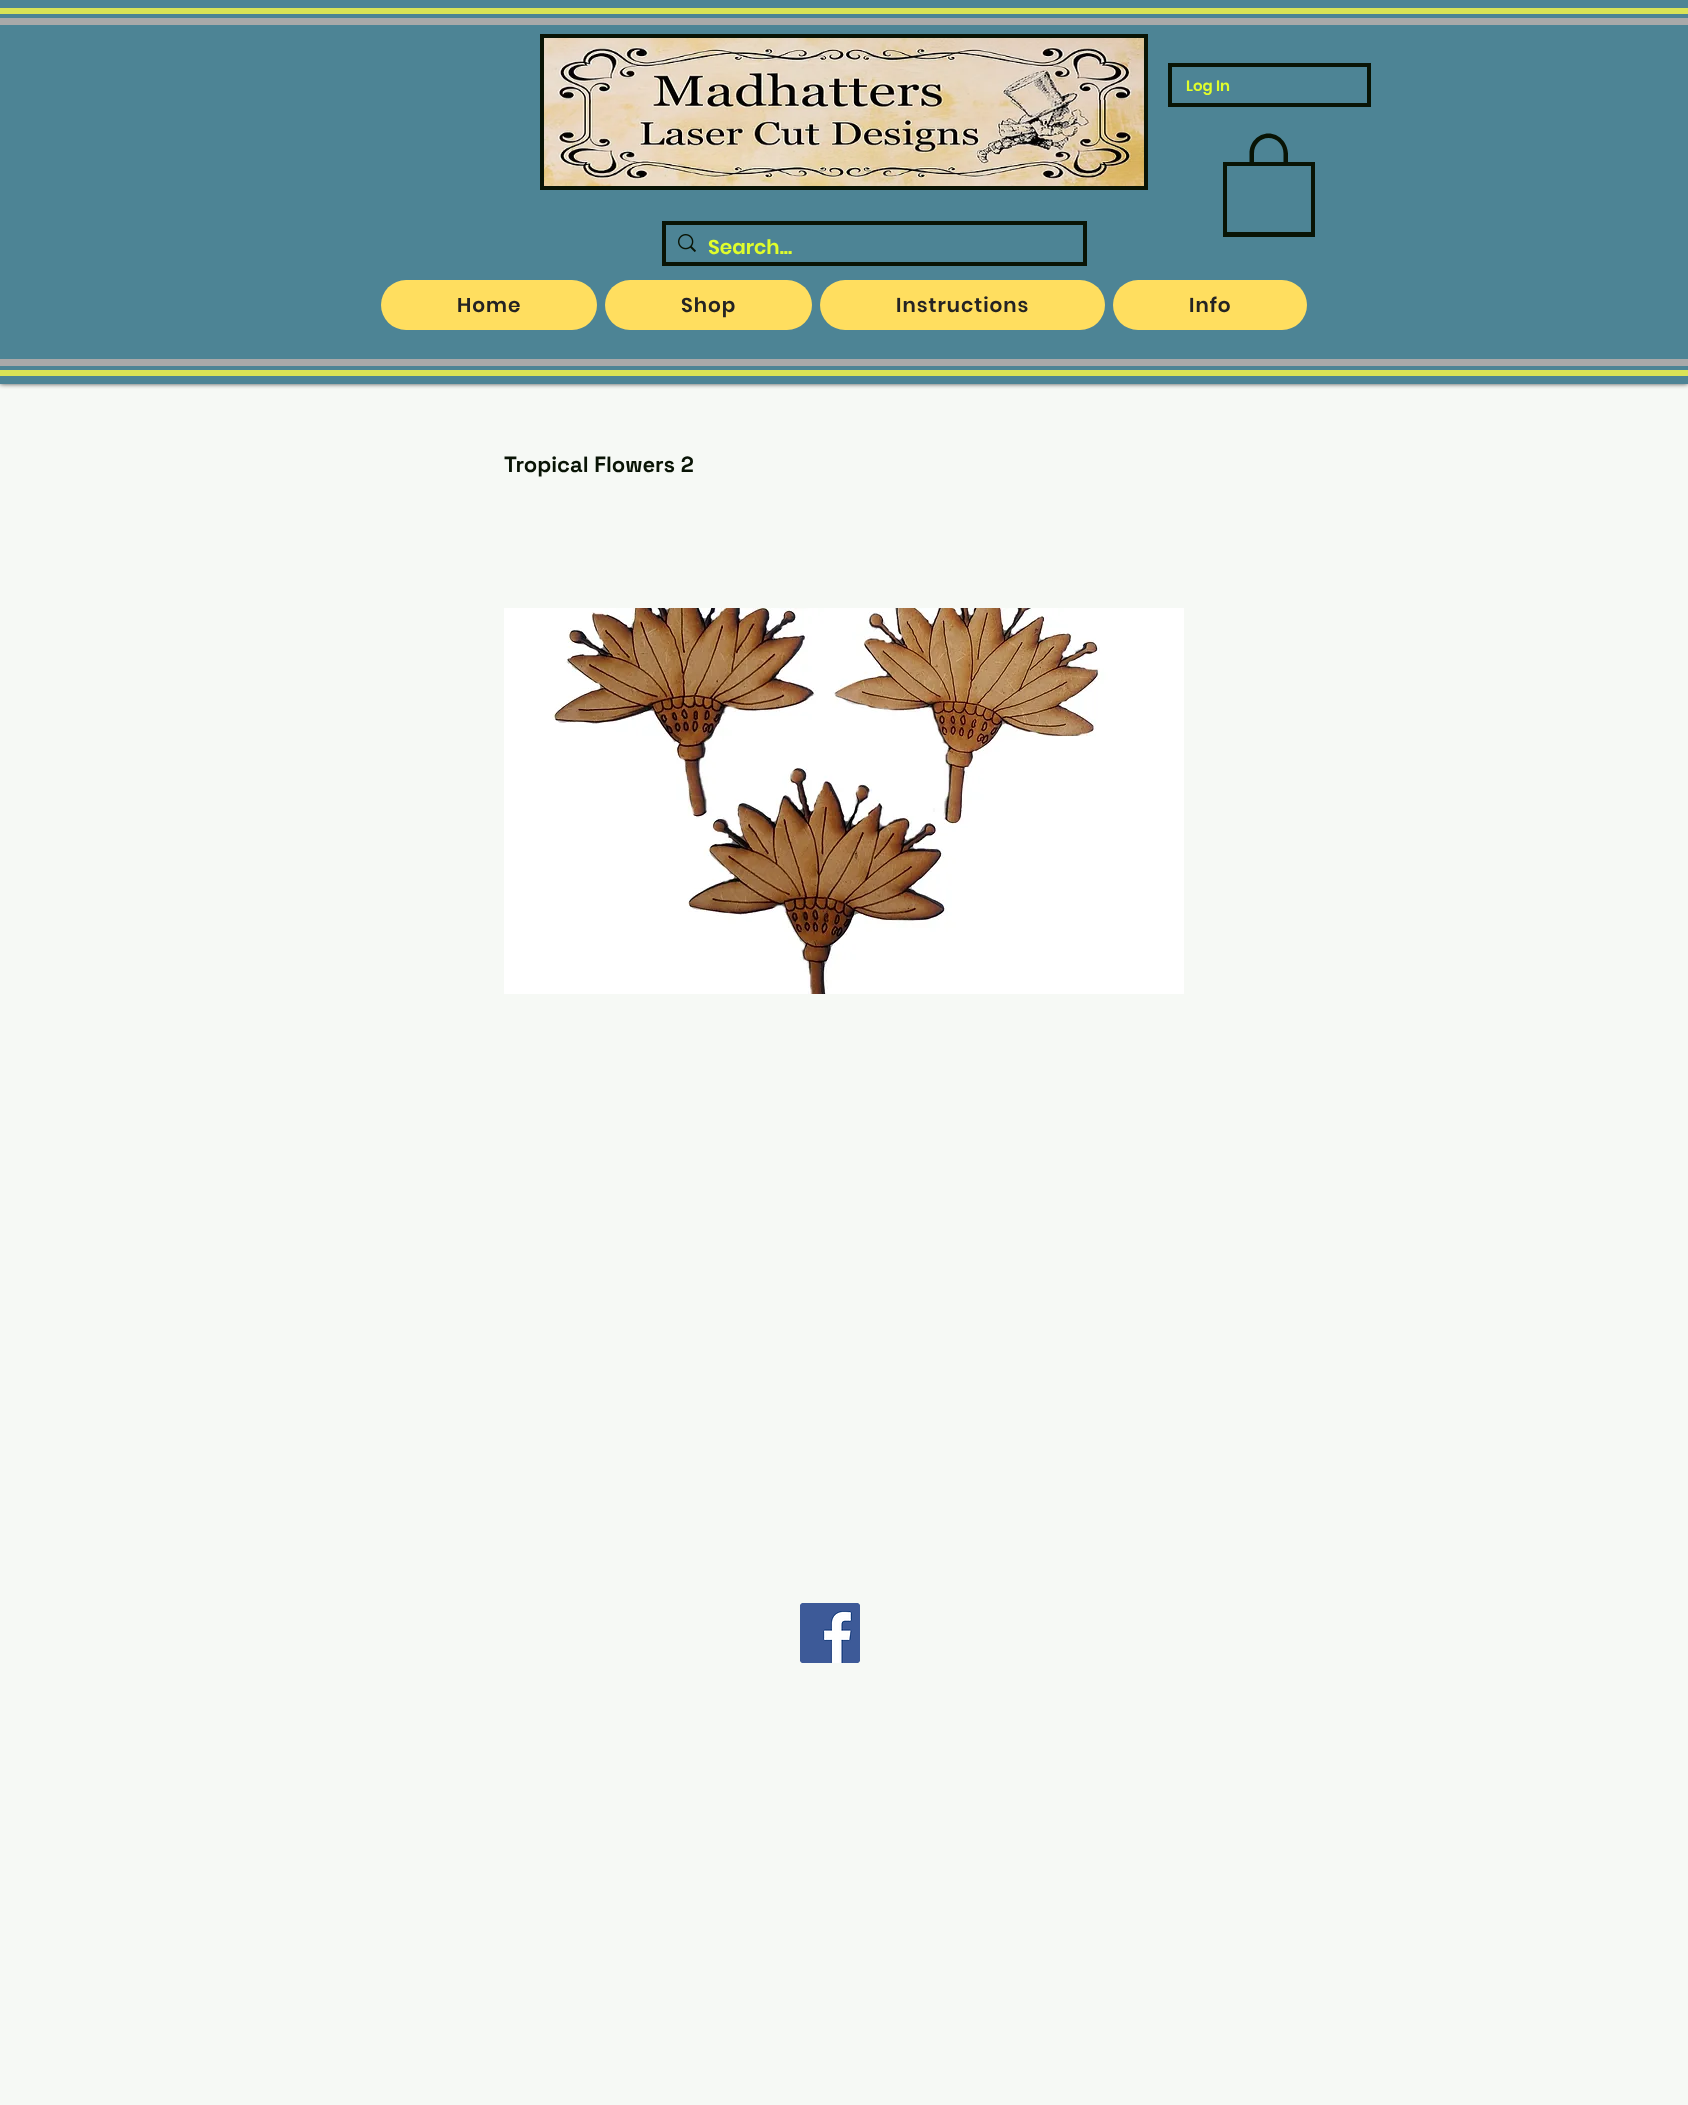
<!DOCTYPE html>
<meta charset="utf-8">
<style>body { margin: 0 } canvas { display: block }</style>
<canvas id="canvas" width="1688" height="2105"></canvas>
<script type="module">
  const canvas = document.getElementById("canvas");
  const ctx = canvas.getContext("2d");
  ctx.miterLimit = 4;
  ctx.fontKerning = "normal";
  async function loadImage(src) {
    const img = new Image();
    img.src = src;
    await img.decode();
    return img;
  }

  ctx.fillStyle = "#f6f9f5";
  ctx.fillRect(0, 0, 1688, 2105);
  ctx.fillStyle = "rgba(0, 0, 0, 0.7)";
  ctx.filter = "blur(2.5px)";
  ctx.beginPath();
  ctx.rect(0, 0, 1688, 384);
  ctx.fill();
  ctx.filter = "none";
  ctx.fillStyle = "#4d8495";
  ctx.fillRect(0, 0, 1688, 384);
  ctx.fillStyle = "#dae356";
  ctx.fillRect(0, 8, 1688, 6);
  ctx.fillRect(0, 370, 1688, 6);
  ctx.fillStyle = "#a9a9a9";
  ctx.fillRect(0, 18, 1688, 7);
  ctx.fillRect(0, 359, 1688, 7);
  ctx.fillStyle = "#091405";
  ctx.fillRect(540, 34, 608, 156);
  ctx.drawImage(await loadImage("img1.png"), 544, 38, 600, 148);
  ctx.strokeStyle = "#091405";
  ctx.lineWidth = 4;
  ctx.strokeRect(1170, 65, 199, 40);
  ctx.font = "600 15px Poppins";
  ctx.fillStyle = "#e0fd2c";
  ctx.fillText("Log In", 1186, 91);
  ctx.fillStyle = "#091405";
  ctx.beginPath();
  ctx.moveTo(1268.5, 133.5);
  ctx.bezierCurveTo(1258, 133.5, 1249.5, 142.5, 1249.5, 153.5);
  ctx.lineTo(1249.5, 163.5);
  ctx.lineTo(1254, 163.5);
  ctx.lineTo(1254, 153.5);
  ctx.bezierCurveTo(1254, 144.5, 1260.5, 138, 1268.5, 138);
  ctx.bezierCurveTo(1277, 138, 1283.5, 144.5, 1283.5, 153.5);
  ctx.lineTo(1283.5, 163.5);
  ctx.lineTo(1287, 163.5);
  ctx.lineTo(1287, 162.5);
  ctx.lineTo(1288, 162.5);
  ctx.lineTo(1288, 153.5);
  ctx.bezierCurveTo(1287.5, 142.5, 1279, 133.5, 1268.5, 133.5);
  ctx.closePath();
  ctx.fill();
  ctx.beginPath();
  ctx.moveTo(1311, 166);
  ctx.lineTo(1311, 232);
  ctx.lineTo(1227, 232);
  ctx.lineTo(1227, 166);
  ctx.lineTo(1311, 166);
  ctx.moveTo(1315, 162);
  ctx.lineTo(1223, 162);
  ctx.lineTo(1223, 237);
  ctx.lineTo(1315, 237);
  ctx.closePath();
  ctx.fill();
  ctx.strokeRect(664, 223, 421, 41);
  ctx.drawImage(await loadImage("img2.png"), 678, 234, 18, 18);
  ctx.font = "600 20px Poppins";
  ctx.fillStyle = "#e0fd2c";
  ctx.fillText("Search...", 708, 254);
  ctx.fillStyle = "#ffde5f";
  ctx.beginPath();
  ctx.roundRect(381, 280, 216, 50, 25);
  ctx.fill();
  ctx.letterSpacing = "1px";
  ctx.fillStyle = "#242323";
  ctx.fillText("Home", 457, 312);
  ctx.fillStyle = "#ffde5f";
  ctx.beginPath();
  ctx.roundRect(605, 280, 207, 50, 25);
  ctx.fill();
  ctx.fillStyle = "#242323";
  ctx.fillText("Shop", 681, 312);
  ctx.fillStyle = "#ffde5f";
  ctx.beginPath();
  ctx.roundRect(820, 280, 285, 50, 25);
  ctx.fill();
  ctx.fillStyle = "#242323";
  ctx.fillText("Instructions", 896, 312);
  ctx.fillStyle = "#ffde5f";
  ctx.beginPath();
  ctx.roundRect(1113, 280, 194, 50, 25);
  ctx.fill();
  ctx.fillStyle = "#242323";
  ctx.fillText("Info", 1189, 312);
  ctx.letterSpacing = "0px";
  ctx.font = "bold 22px Space Grotesk";
  ctx.fillStyle = "#091405";
  ctx.fillText("Tropical Flowers 2", 504, 472);
  ctx.drawImage(await loadImage("img3.png"), 504, 608, 680, 386);
  ctx.drawImage(await loadImage("img4.png"), 800, 1603, 60, 60);
</script>
